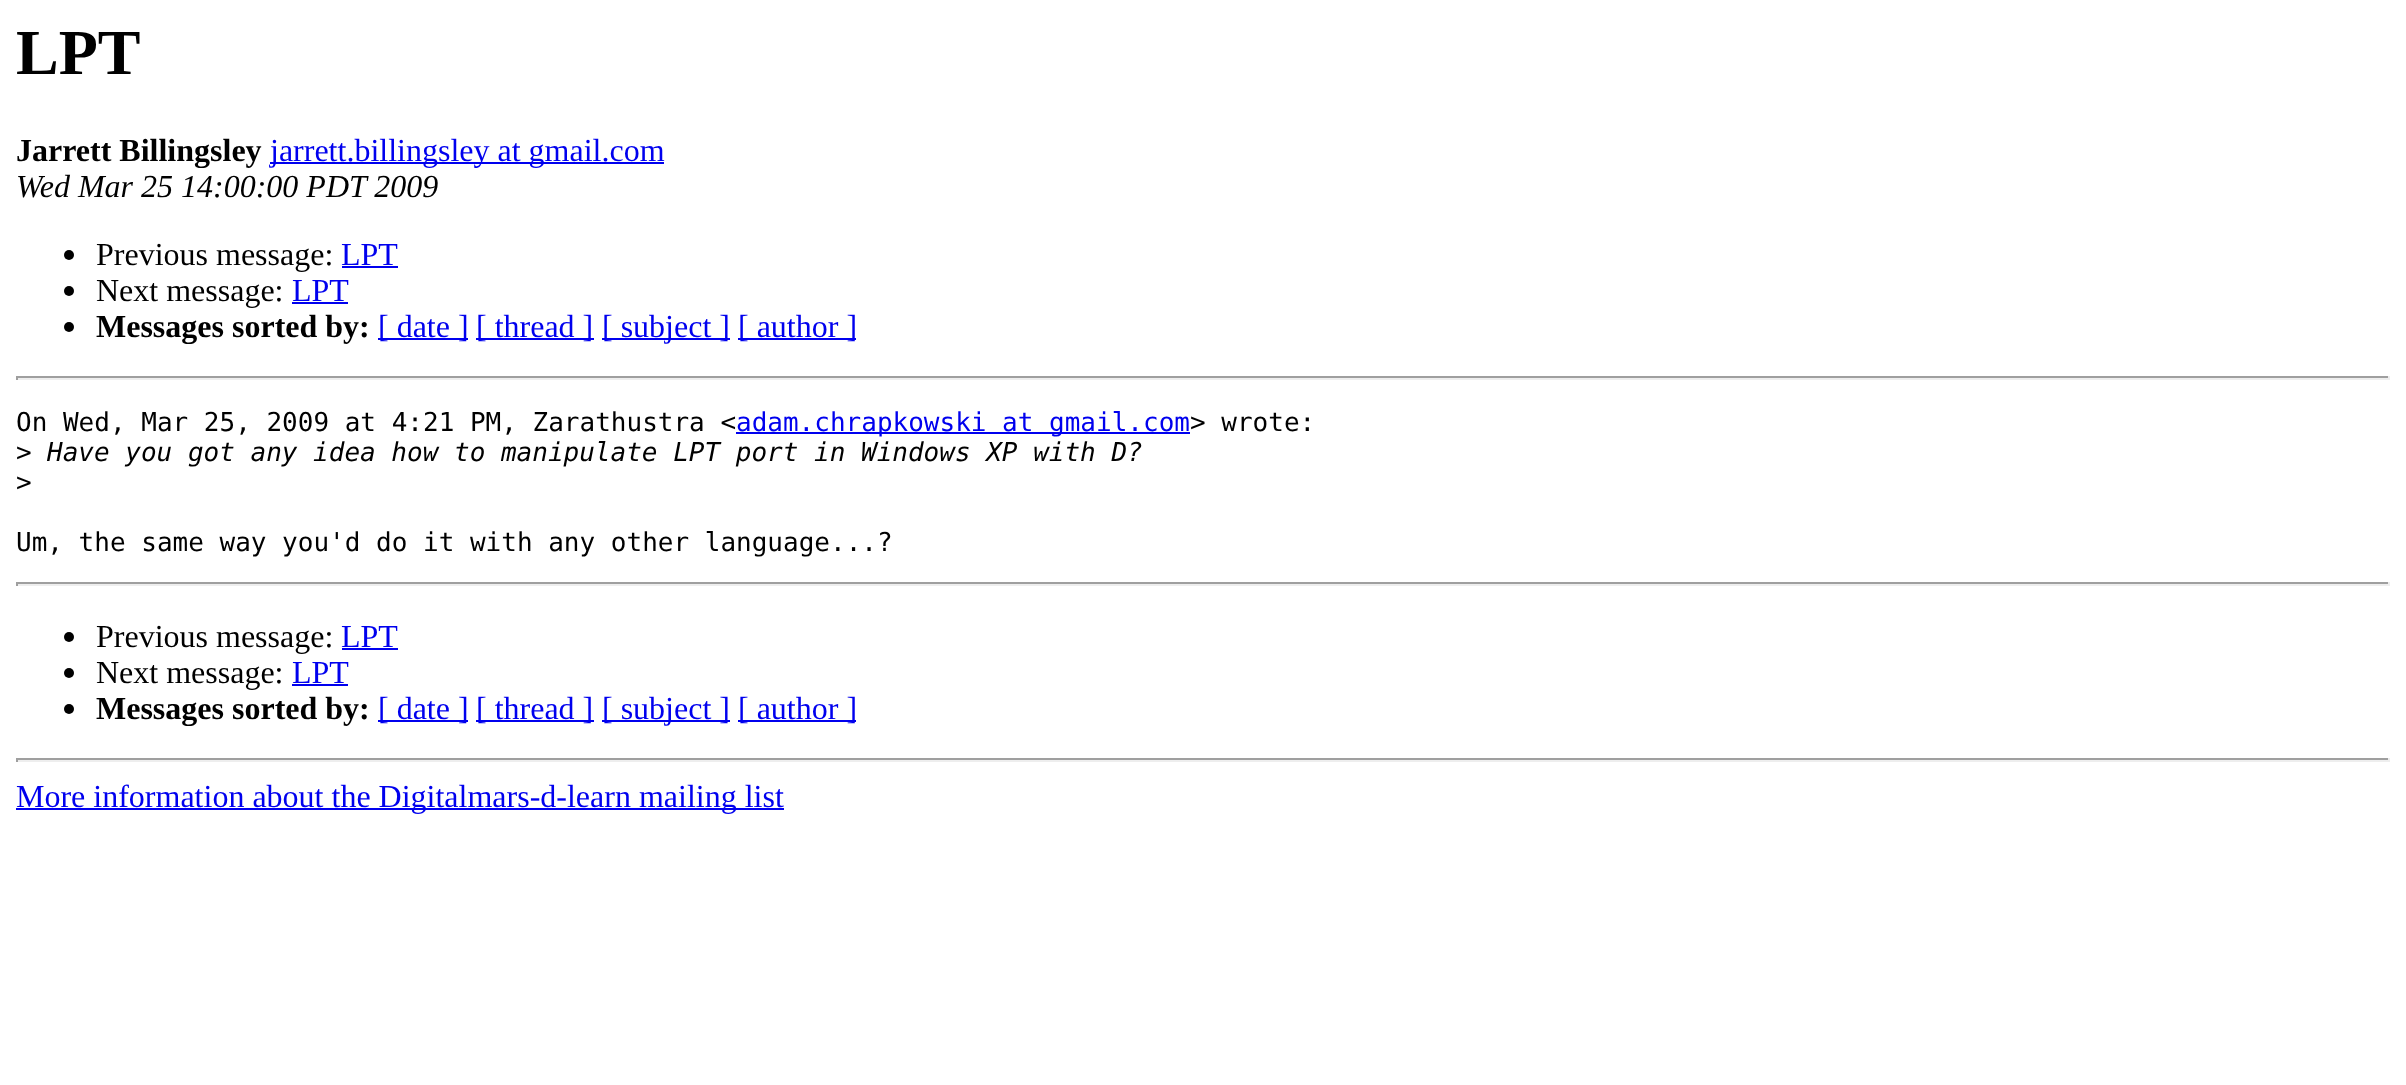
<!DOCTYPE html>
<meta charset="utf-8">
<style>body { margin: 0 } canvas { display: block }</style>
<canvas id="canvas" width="2406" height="1085"></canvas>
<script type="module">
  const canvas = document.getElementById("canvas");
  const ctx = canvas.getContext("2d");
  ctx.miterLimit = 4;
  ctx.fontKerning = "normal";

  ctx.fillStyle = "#ffffff";
  ctx.fillRect(0, 0, 2406, 1085);
  ctx.font = "bold 64px Liberation Serif";
  ctx.fillStyle = "#000000";
  ctx.fillText("LPT", 16, 74);
  ctx.font = "bold 32px Liberation Serif";
  ctx.fillText("Jarrett Billingsley", 16, 161);
  ctx.fillStyle = "#0000ee";
  ctx.fillRect(270, 162, 394, 2);
  ctx.font = "32px Liberation Serif";
  ctx.fillText("jarrett.billingsley at gmail.com", 270, 161);
  ctx.font = "italic 32px Liberation Serif";
  ctx.fillStyle = "#000000";
  ctx.fillText("Wed Mar 25 14:00:00 PDT 2009", 16, 197);
  ctx.beginPath();
  ctx.arc(69, 255, 5, 0, Math.PI * 2);
  ctx.fill();
  ctx.font = "32px Liberation Serif";
  ctx.fillText("Previous message:", 96, 265);
  ctx.fillStyle = "#0000ee";
  ctx.fillText("LPT", 341, 265);
  ctx.fillRect(342, 266, 56, 2);
  ctx.fillStyle = "#000000";
  ctx.beginPath();
  ctx.arc(69, 291, 5, 0, Math.PI * 2);
  ctx.fill();
  ctx.fillText("Next message:", 96, 301);
  ctx.fillStyle = "#0000ee";
  ctx.fillText("LPT", 292, 301);
  ctx.fillRect(292, 302, 56, 2);
  ctx.fillStyle = "#000000";
  ctx.beginPath();
  ctx.arc(69, 327, 5, 0, Math.PI * 2);
  ctx.fill();
  ctx.font = "bold 32px Liberation Serif";
  ctx.fillText("Messages sorted by:", 96, 337);
  ctx.fillStyle = "#0000ee";
  ctx.fillRect(378, 338, 90, 2);
  ctx.font = "32px Liberation Serif";
  ctx.fillText("[ date ]", 378, 337);
  ctx.fillRect(476, 338, 118, 2);
  ctx.fillText("[ thread ]", 476, 337);
  ctx.fillRect(602, 338, 128, 2);
  ctx.fillText("[ subject ]", 602, 337);
  ctx.fillRect(738, 338, 118, 2);
  ctx.fillText("[ author ]", 738, 337);
  ctx.fillStyle = "#9f9f9f";
  ctx.fillRect(16, 376, 2374, 2);
  ctx.fillStyle = "#eeeeee";
  ctx.fillRect(2388, 376, 2, 4);
  ctx.fillRect(16, 378, 2374, 2);
  ctx.fillStyle = "#9f9f9f";
  ctx.fillRect(16, 376, 2, 4);
  ctx.font = "26px DejaVu Sans Mono";
  ctx.fillStyle = "#000000";
  ctx.fillText("On Wed, Mar 25, 2009 at 4:21 PM, Zarathustra <", 16, 431);
  ctx.fillStyle = "#0000ee";
  ctx.fillRect(736, 432, 454, 2);
  ctx.fillText("adam.chrapkowski at gmail.com", 736, 431);
  ctx.fillStyle = "#000000";
  ctx.fillText("> wrote:", 1190, 431);
  ctx.fillText(">", 16, 461);
  ctx.font = "italic 26px DejaVu Sans Mono";
  ctx.fillText("Have you got any idea how to manipulate LPT port in Windows XP with D?", 47, 461);
  ctx.font = "26px DejaVu Sans Mono";
  ctx.fillText(">", 16, 491);
  ctx.fillText("Um, the same way you'd do it with any other language...?", 16, 551);
  ctx.fillStyle = "#9f9f9f";
  ctx.fillRect(16, 582, 2374, 2);
  ctx.fillStyle = "#eeeeee";
  ctx.fillRect(2388, 582, 2, 4);
  ctx.fillRect(16, 584, 2374, 2);
  ctx.fillStyle = "#9f9f9f";
  ctx.fillRect(16, 582, 2, 4);
  ctx.fillStyle = "#000000";
  ctx.beginPath();
  ctx.arc(69, 637, 5, 0, Math.PI * 2);
  ctx.fill();
  ctx.font = "32px Liberation Serif";
  ctx.fillText("Previous message:", 96, 647);
  ctx.fillStyle = "#0000ee";
  ctx.fillText("LPT", 341, 647);
  ctx.fillRect(342, 648, 56, 2);
  ctx.fillStyle = "#000000";
  ctx.beginPath();
  ctx.arc(69, 673, 5, 0, Math.PI * 2);
  ctx.fill();
  ctx.fillText("Next message:", 96, 683);
  ctx.fillStyle = "#0000ee";
  ctx.fillText("LPT", 292, 683);
  ctx.fillRect(292, 684, 56, 2);
  ctx.fillStyle = "#000000";
  ctx.beginPath();
  ctx.arc(69, 709, 5, 0, Math.PI * 2);
  ctx.fill();
  ctx.font = "bold 32px Liberation Serif";
  ctx.fillText("Messages sorted by:", 96, 719);
  ctx.fillStyle = "#0000ee";
  ctx.fillRect(378, 720, 90, 2);
  ctx.font = "32px Liberation Serif";
  ctx.fillText("[ date ]", 378, 719);
  ctx.fillRect(476, 720, 118, 2);
  ctx.fillText("[ thread ]", 476, 719);
  ctx.fillRect(602, 720, 128, 2);
  ctx.fillText("[ subject ]", 602, 719);
  ctx.fillRect(738, 720, 118, 2);
  ctx.fillText("[ author ]", 738, 719);
  ctx.fillStyle = "#9f9f9f";
  ctx.fillRect(16, 758, 2374, 2);
  ctx.fillStyle = "#eeeeee";
  ctx.fillRect(2388, 758, 2, 4);
  ctx.fillRect(16, 760, 2374, 2);
  ctx.fillStyle = "#9f9f9f";
  ctx.fillRect(16, 758, 2, 4);
  ctx.fillStyle = "#0000ee";
  ctx.fillRect(16, 808, 768, 2);
  ctx.fillText("More information about the Digitalmars-d-learn mailing list", 16, 807);
</script>
